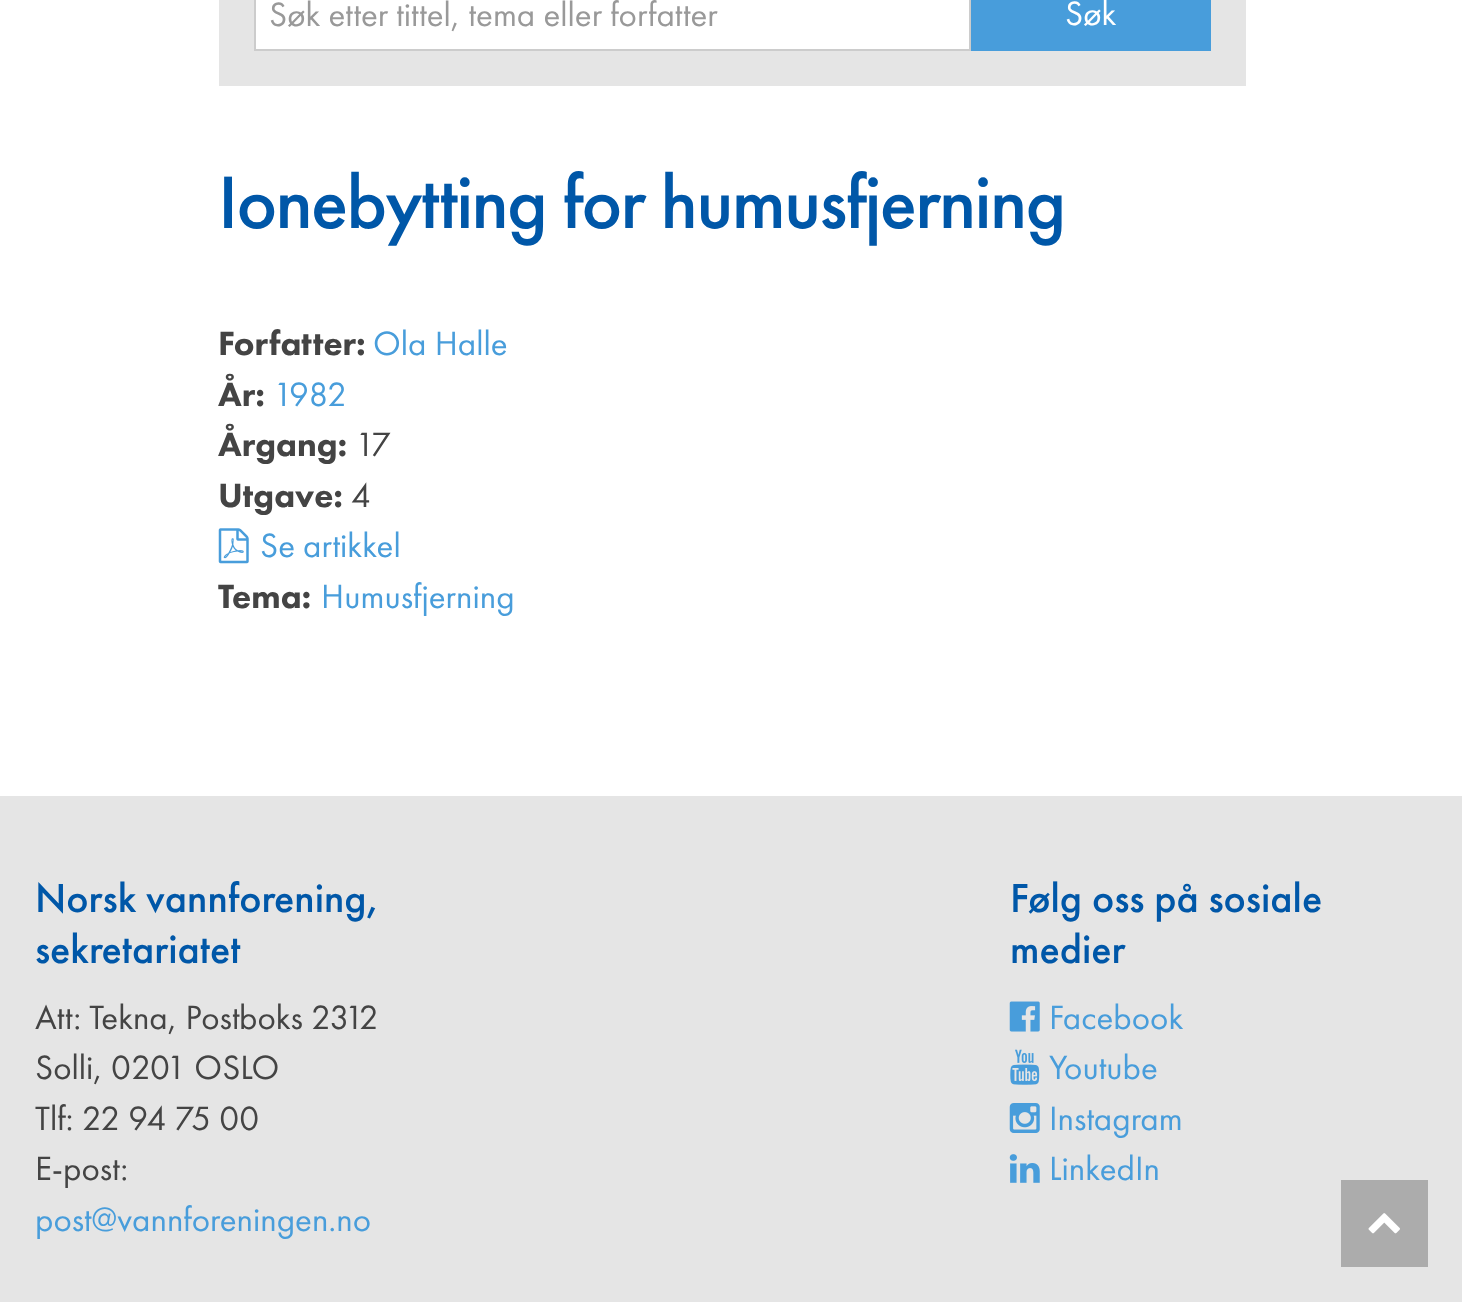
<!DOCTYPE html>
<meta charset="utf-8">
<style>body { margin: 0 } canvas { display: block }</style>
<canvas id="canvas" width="1462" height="1302"></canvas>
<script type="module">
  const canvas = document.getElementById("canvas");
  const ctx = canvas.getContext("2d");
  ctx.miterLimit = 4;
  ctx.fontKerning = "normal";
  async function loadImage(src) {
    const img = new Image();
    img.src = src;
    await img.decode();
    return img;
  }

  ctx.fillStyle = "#ffffff";
  ctx.fillRect(0, 0, 1462, 1302);
  ctx.fillStyle = "#e5e5e5";
  ctx.fillRect(219, 0, 1027, 86);
  ctx.fillStyle = "#ffffff";
  ctx.beginPath();
  ctx.rect(255, -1, 715, 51);
  ctx.fill();
  ctx.strokeStyle = "#cccccc";
  ctx.lineWidth = 2;
  ctx.stroke();
  ctx.font = "35px Futura PT";
  ctx.fillStyle = "#999999";
  ctx.fillText("Søk etter tittel, tema eller forfatter", 269, 26);
  ctx.fillStyle = "#489ddb";
  ctx.fillRect(971, 0, 240, 51);
  ctx.fillStyle = "#ffffff";
  ctx.fillText("Søk", 1065, 25);
  ctx.letterSpacing = "-1.75px";
  ctx.font = "500 77px Futura PT";
  ctx.fillStyle = "#0057a8";
  ctx.fillText("Ionebytting for humusfjerning", 218, 228);
  ctx.letterSpacing = "0px";
  ctx.font = "900 35px Futura PT";
  ctx.fillStyle = "#444444";
  ctx.fillText("Forfatter:", 218, 355);
  ctx.font = "35px Futura PT";
  ctx.fillStyle = "#489ddb";
  ctx.fillText("Ola Halle", 373, 355);
  ctx.font = "900 35px Futura PT";
  ctx.fillStyle = "#444444";
  ctx.fillText("År:", 218, 406);
  ctx.font = "35px Futura PT";
  ctx.fillStyle = "#489ddb";
  ctx.fillText("1982", 273, 406);
  ctx.font = "900 35px Futura PT";
  ctx.fillStyle = "#444444";
  ctx.fillText("Årgang:", 218, 456);
  ctx.font = "35px Futura PT";
  ctx.fillText("17", 355, 456);
  ctx.font = "900 35px Futura PT";
  ctx.fillText("Utgave:", 218, 507);
  ctx.font = "35px Futura PT";
  ctx.fillText("4", 351, 507);
  ctx.drawImage(await loadImage("img1.png"), 218, 528, 31, 36);
  ctx.fillStyle = "#489ddb";
  ctx.fillText("Se artikkel", 260, 557);
  ctx.font = "900 35px Futura PT";
  ctx.fillStyle = "#444444";
  ctx.fillText("Tema:", 218, 608);
  ctx.font = "35px Futura PT";
  ctx.fillStyle = "#489ddb";
  ctx.fillText("Humusfjerning", 321, 608);
  ctx.fillStyle = "#e5e5e5";
  ctx.fillRect(0, 796, 1462, 506);
  ctx.font = "500 42px Futura PT";
  ctx.fillStyle = "#0057a8";
  ctx.fillText("Norsk vannforening,", 35, 912);
  ctx.fillText("sekretariatet", 35, 963);
  ctx.font = "35px Futura PT";
  ctx.fillStyle = "#444444";
  ctx.fillText("Att: Tekna, Postboks 2312", 35, 1029);
  ctx.fillText("Solli, 0201 OSLO", 35, 1079);
  ctx.fillText("Tlf: 22 94 75 00", 35, 1130);
  ctx.fillText("E-post:", 35, 1180);
  ctx.fillStyle = "#489ddb";
  ctx.fillText("post@vannforeningen.no", 35, 1231);
  ctx.font = "500 42px Futura PT";
  ctx.fillStyle = "#0057a8";
  ctx.fillText("Følg oss på sosiale", 1010, 912);
  ctx.fillText("medier", 1010, 963);
  ctx.drawImage(await loadImage("img2.png"), 1009, 1001, 31, 31);
  ctx.font = "35px Futura PT";
  ctx.fillStyle = "#489ddb";
  ctx.fillText("Facebook", 1049, 1029);
  ctx.drawImage(await loadImage("img3.png"), 1010, 1049, 30, 36);
  ctx.fillText("Youtube", 1049, 1079);
  ctx.drawImage(await loadImage("img4.png"), 1009, 1103, 31, 30);
  ctx.fillText("Instagram", 1049, 1130);
  ctx.drawImage(await loadImage("img5.png"), 1009, 1154, 31, 29);
  ctx.fillText("LinkedIn", 1049, 1180);
  ctx.fillStyle = "#acacac";
  ctx.fillRect(1341, 1180, 87, 87);
  ctx.drawImage(await loadImage("img6.png"), 1368, 1213, 32, 21);
</script>
